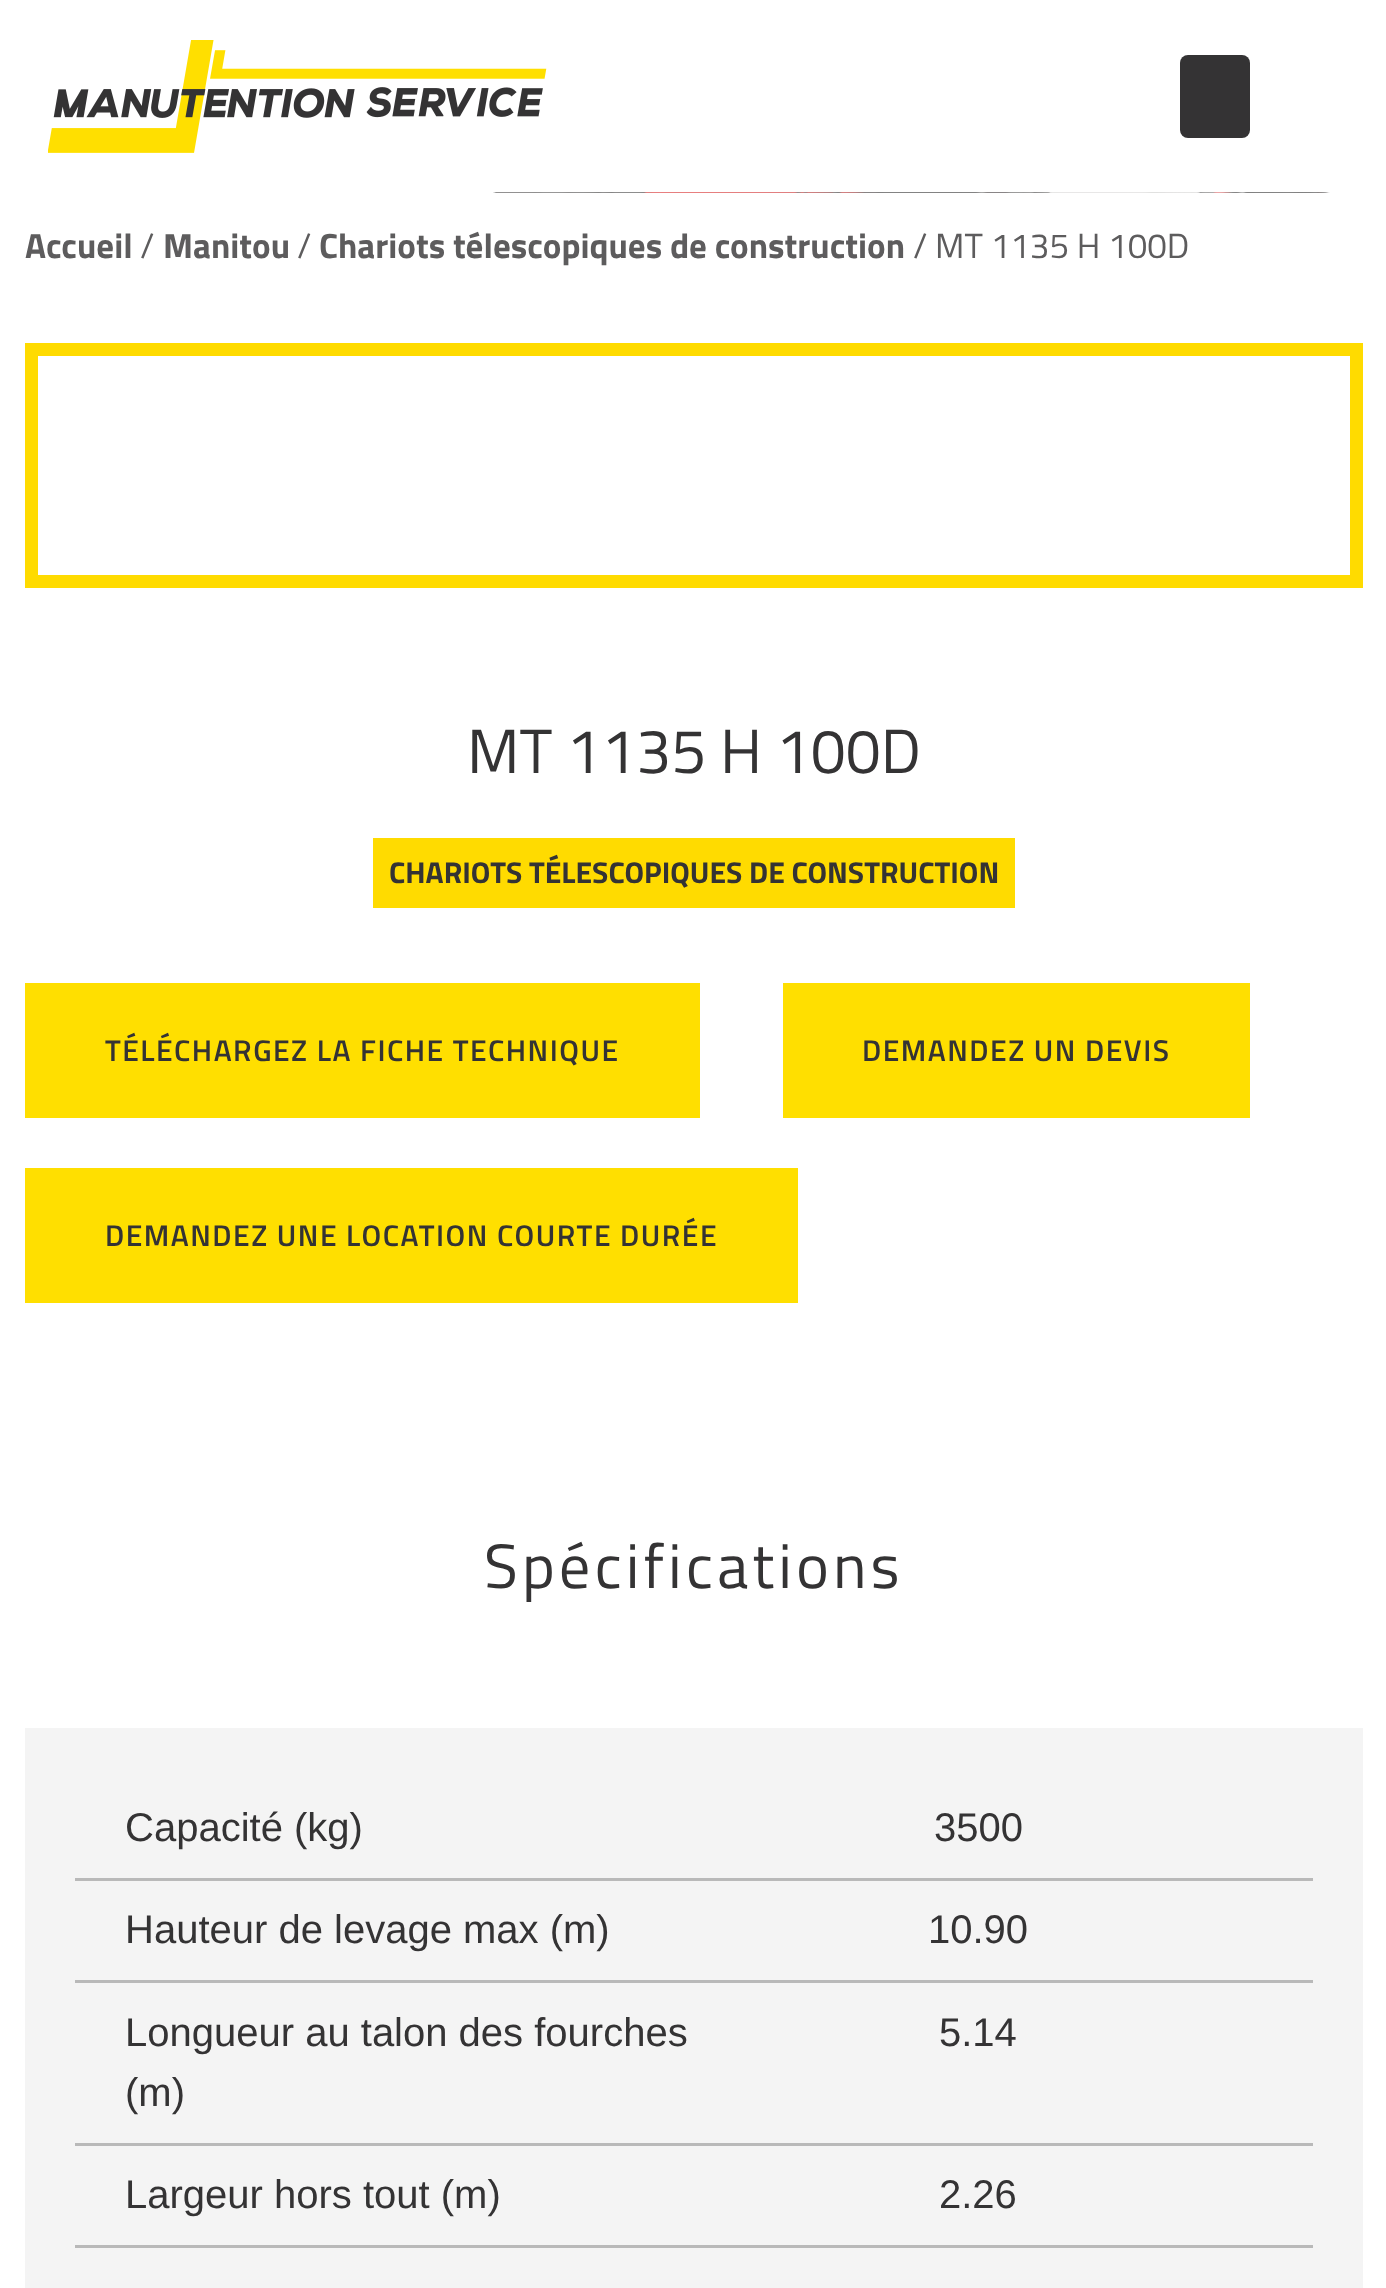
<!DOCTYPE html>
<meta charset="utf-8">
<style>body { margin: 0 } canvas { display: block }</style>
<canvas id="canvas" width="1386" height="2288"></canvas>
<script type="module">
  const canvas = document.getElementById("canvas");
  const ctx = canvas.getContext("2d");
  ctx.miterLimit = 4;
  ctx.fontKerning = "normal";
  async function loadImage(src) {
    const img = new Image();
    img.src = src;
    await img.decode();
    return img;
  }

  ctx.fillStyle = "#ffffff";
  ctx.fillRect(0, 0, 1386, 2288);
  ctx.drawImage(await loadImage("img1.png"), 48, 40, 499, 113);
  ctx.fillStyle = "#343334";
  ctx.beginPath();
  ctx.roundRect(1180, 55, 70, 83, 8);
  ctx.fill();
  ctx.drawImage(await loadImage("img2.png"), 493, 192, 837, 1);
  ctx.font = "bold 35px Titillium Web";
  ctx.fillStyle = "#5d5c5d";
  ctx.fillText("Accueil", 25, 258);
  ctx.font = "35px Titillium Web";
  ctx.fillText("/", 140, 258);
  ctx.font = "bold 35px Titillium Web";
  ctx.fillText("Manitou", 163, 258);
  ctx.font = "35px Titillium Web";
  ctx.fillText("/", 297, 258);
  ctx.font = "bold 35px Titillium Web";
  ctx.fillText("Chariots télescopiques de construction", 319, 258);
  ctx.font = "35px Titillium Web";
  ctx.fillText("/ MT 1135 H 100D", 913, 258);
  ctx.strokeStyle = "#ffdb00";
  ctx.lineWidth = 13;
  ctx.strokeRect(31.5, 349.5, 1325, 232);
  ctx.font = "62.5px Titillium Web";
  ctx.fillStyle = "#343334";
  ctx.fillText("MT 1135 H 100D", 467, 773);
  ctx.fillStyle = "#ffdb00";
  ctx.fillRect(373, 838, 642, 70);
  ctx.font = "bold 30px Titillium Web";
  ctx.fillStyle = "#343334";
  ctx.fillText("CHARIOTS TÉLESCOPIQUES DE CONSTRUCTION", 389, 883);
  ctx.fillStyle = "#ffdf00";
  ctx.fillRect(25, 983, 675, 135);
  ctx.letterSpacing = "1.5px";
  ctx.font = "600 30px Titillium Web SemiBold";
  ctx.fillStyle = "#343334";
  ctx.fillText("TÉLÉCHARGEZ LA FICHE TECHNIQUE", 105, 1061);
  ctx.fillStyle = "#ffdf00";
  ctx.fillRect(783, 983, 467, 135);
  ctx.fillStyle = "#343334";
  ctx.fillText("DEMANDEZ UN DEVIS", 862, 1061);
  ctx.fillStyle = "#ffdf00";
  ctx.fillRect(25, 1168, 773, 135);
  ctx.fillStyle = "#343334";
  ctx.fillText("DEMANDEZ UNE LOCATION COURTE DURÉE", 105, 1246);
  ctx.letterSpacing = "4px";
  ctx.font = "62.5px Titillium Web";
  ctx.fillText("Spécifications", 484, 1588);
  ctx.fillStyle = "#f4f4f4";
  ctx.fillRect(25, 1728, 1338, 560);
  ctx.fillStyle = "#b9b9b9";
  ctx.fillRect(75, 1878, 1238, 3);
  ctx.letterSpacing = "0px";
  ctx.font = "40px Liberation Sans";
  ctx.fillStyle = "#343334";
  ctx.fillText("Capacité (kg)", 125, 1841);
  ctx.fillText("3500", 934, 1841);
  ctx.fillStyle = "#b9b9b9";
  ctx.fillRect(75, 1980, 1238, 3);
  ctx.fillStyle = "#343334";
  ctx.fillText("Hauteur de levage max (m)", 125, 1943);
  ctx.fillText("10.90", 928, 1943);
  ctx.fillStyle = "#b9b9b9";
  ctx.fillRect(75, 2143, 1238, 3);
  ctx.fillStyle = "#343334";
  ctx.fillText("Longueur au talon des fourches", 125, 2046);
  ctx.fillText("(m)", 125, 2106);
  ctx.fillText("5.14", 939, 2046);
  ctx.fillStyle = "#b9b9b9";
  ctx.fillRect(75, 2245, 1238, 3);
  ctx.fillStyle = "#343334";
  ctx.fillText("Largeur hors tout (m)", 125, 2208);
  ctx.fillText("2.26", 939, 2208);
</script>
